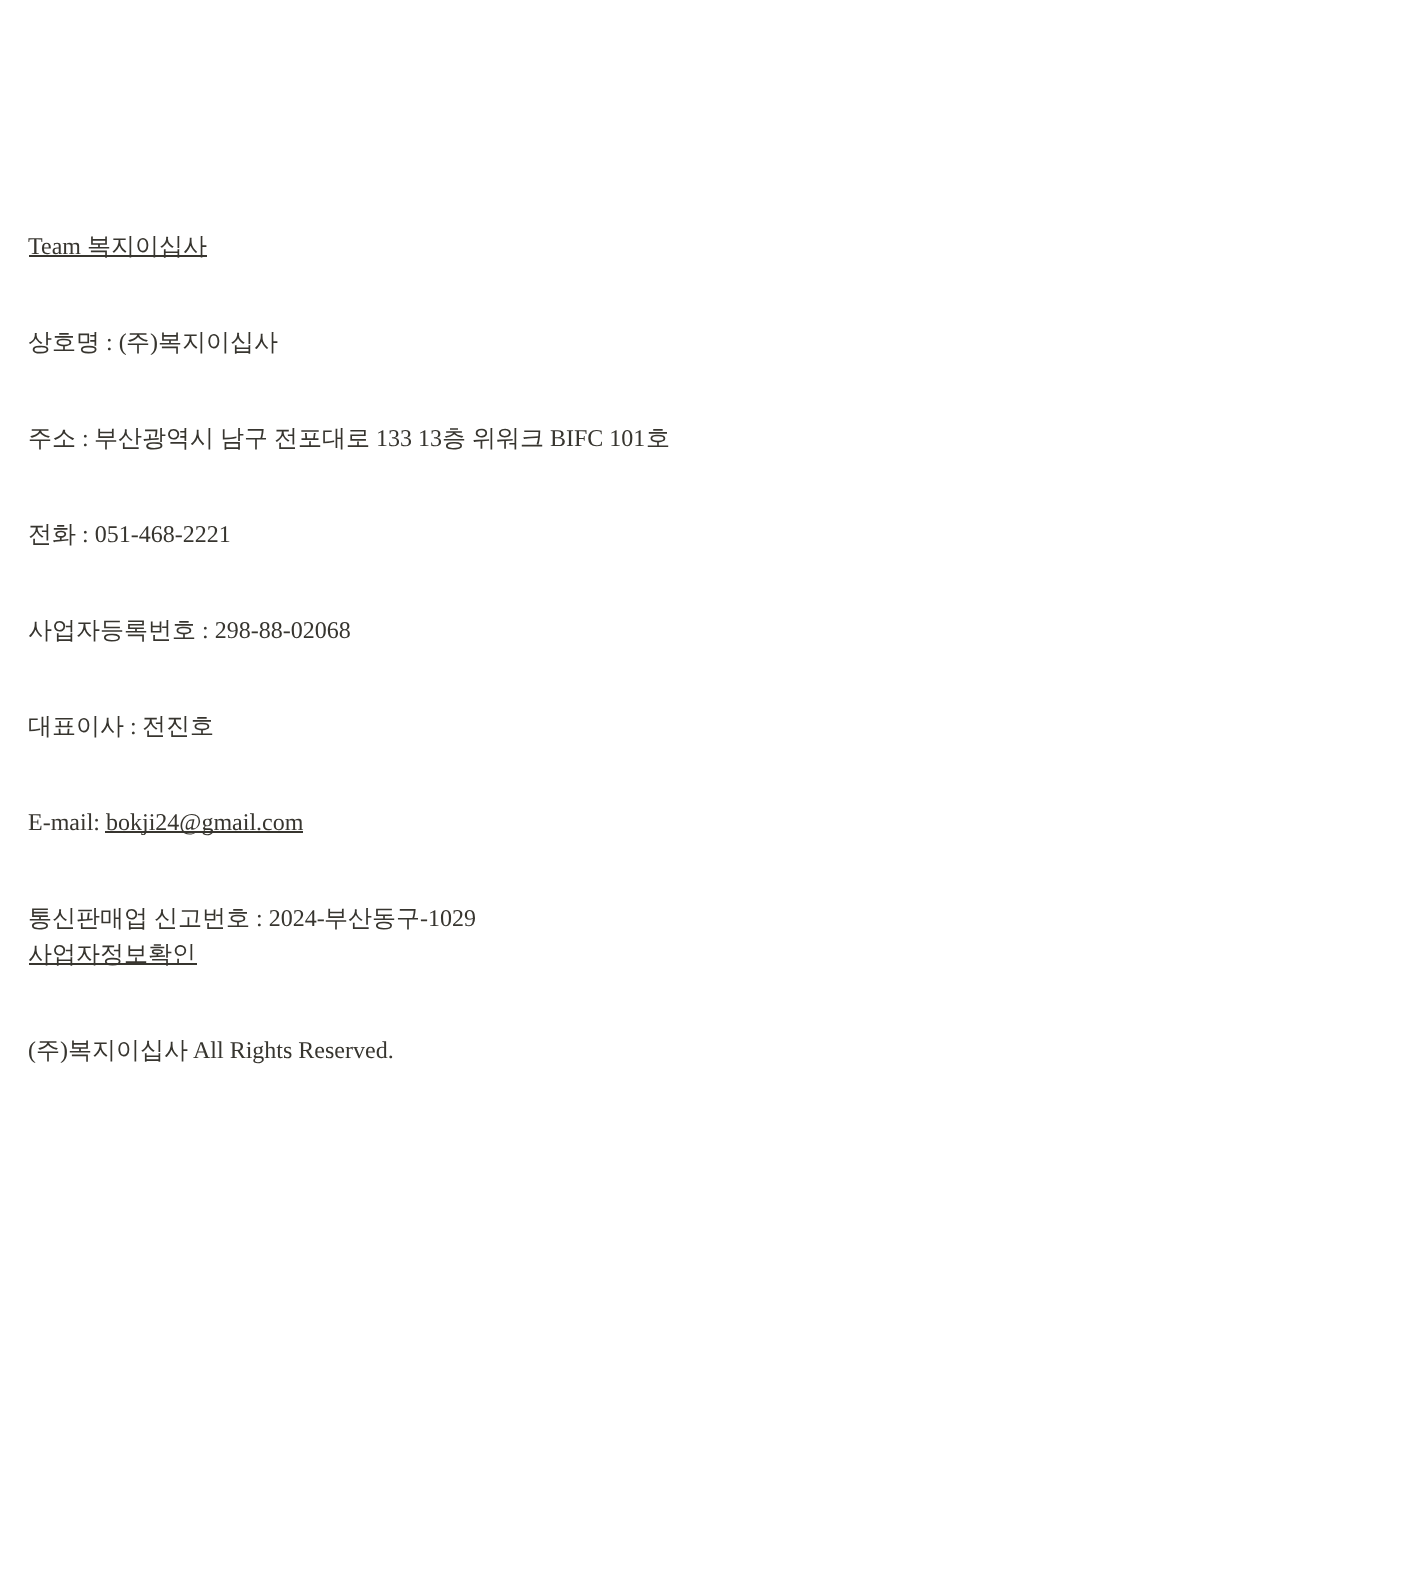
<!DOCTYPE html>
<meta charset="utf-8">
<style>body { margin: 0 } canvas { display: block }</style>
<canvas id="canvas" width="1405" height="1592"></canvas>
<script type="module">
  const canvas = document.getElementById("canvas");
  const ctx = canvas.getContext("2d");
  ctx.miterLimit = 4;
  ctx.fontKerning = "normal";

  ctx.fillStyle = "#ffffff";
  ctx.fillRect(0, 0, 1405, 1592);
  ctx.font = "24px Liberation Serif";
  ctx.fillStyle = "#37352f";
  ctx.fillText("Team", 28, 254);
  ctx.fillRect(29, 255, 178, 2);
  ctx.font = "500 24px WenQuanYi Zen Hei";
  ctx.fillText("복지이십사", 87, 254);
  ctx.fillText("상호명", 28, 350);
  ctx.font = "24px Liberation Serif";
  ctx.fillText(": (", 106, 350);
  ctx.font = "500 24px WenQuanYi Zen Hei";
  ctx.fillText("주", 126, 350);
  ctx.font = "24px Liberation Serif";
  ctx.fillText(")", 150, 350);
  ctx.font = "500 24px WenQuanYi Zen Hei";
  ctx.fillText("복지이십사", 158, 350);
  ctx.fillText("주소", 28, 446);
  ctx.font = "24px Liberation Serif";
  ctx.fillText(":", 82, 446);
  ctx.font = "500 24px WenQuanYi Zen Hei";
  ctx.fillText("부산광역시", 94, 446);
  ctx.fillText("남구", 220, 446);
  ctx.fillText("전포대로", 274, 446);
  ctx.font = "24px Liberation Serif";
  ctx.fillText("133 13", 376, 446);
  ctx.font = "500 24px WenQuanYi Zen Hei";
  ctx.fillText("층", 442, 446);
  ctx.fillText("위워크", 472, 446);
  ctx.font = "24px Liberation Serif";
  ctx.fillText("BIFC 101", 550, 446);
  ctx.font = "500 24px WenQuanYi Zen Hei";
  ctx.fillText("호", 646, 446);
  ctx.fillText("전화", 28, 542);
  ctx.font = "24px Liberation Serif";
  ctx.fillText(": 051-468-2221", 82, 542);
  ctx.font = "500 24px WenQuanYi Zen Hei";
  ctx.fillText("사업자등록번호", 28, 638);
  ctx.font = "24px Liberation Serif";
  ctx.fillText(": 298-88-02068", 202, 638);
  ctx.font = "500 24px WenQuanYi Zen Hei";
  ctx.fillText("대표이사", 28, 734);
  ctx.font = "24px Liberation Serif";
  ctx.fillText(":", 130, 734);
  ctx.font = "500 24px WenQuanYi Zen Hei";
  ctx.fillText("전진호", 142, 734);
  ctx.font = "24px Liberation Serif";
  ctx.fillText("E-mail:", 28, 830);
  ctx.fillRect(105, 831, 198, 2);
  ctx.fillText("bokji24@gmail.com", 106, 830);
  ctx.font = "500 24px WenQuanYi Zen Hei";
  ctx.fillText("통신판매업", 28, 926);
  ctx.fillText("신고번호", 154, 926);
  ctx.font = "24px Liberation Serif";
  ctx.fillText(": 2024-", 256, 926);
  ctx.font = "500 24px WenQuanYi Zen Hei";
  ctx.fillText("부산동구", 324, 926);
  ctx.font = "24px Liberation Serif";
  ctx.fillText("-1029", 420, 926);
  ctx.fillRect(29, 963, 168, 2);
  ctx.font = "500 24px WenQuanYi Zen Hei";
  ctx.fillText("사업자정보확인", 28, 962);
  ctx.font = "24px Liberation Serif";
  ctx.fillText("(", 28, 1058);
  ctx.font = "500 24px WenQuanYi Zen Hei";
  ctx.fillText("주", 36, 1058);
  ctx.font = "24px Liberation Serif";
  ctx.fillText(")", 60, 1058);
  ctx.font = "500 24px WenQuanYi Zen Hei";
  ctx.fillText("복지이십사", 68, 1058);
  ctx.font = "24px Liberation Serif";
  ctx.fillText("All Rights Reserved.", 193, 1058);
</script>
